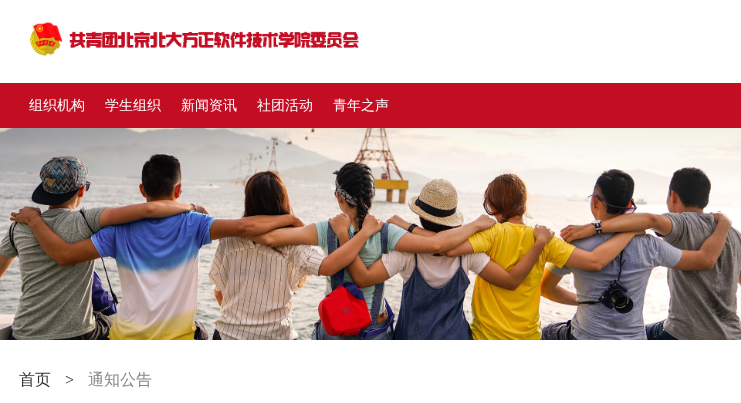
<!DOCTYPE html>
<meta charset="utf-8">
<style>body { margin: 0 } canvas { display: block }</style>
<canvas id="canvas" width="741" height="403"></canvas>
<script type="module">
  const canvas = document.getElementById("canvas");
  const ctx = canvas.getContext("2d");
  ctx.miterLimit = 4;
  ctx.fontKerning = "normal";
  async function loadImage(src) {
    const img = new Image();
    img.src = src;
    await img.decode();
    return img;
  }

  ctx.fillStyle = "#ffffff";
  ctx.fillRect(0, 0, 741, 403);
  ctx.drawImage(await loadImage("img1.png"), 30, 22, 329, 35);
  ctx.fillStyle = "#c30d23";
  ctx.fillRect(0, 83, 741, 45);
  ctx.font = "500 14px WenQuanYi Zen Hei";
  ctx.fillStyle = "#ffffff";
  ctx.fillText("组织机构", 29, 110);
  ctx.fillText("学生组织", 105, 110);
  ctx.fillText("新闻资讯", 181, 110);
  ctx.fillText("社团活动", 257, 110);
  ctx.fillText("青年之声", 333, 110);
  ctx.drawImage(await loadImage("img2.png"), 0, 128, 741, 212);
  ctx.font = "500 16px WenQuanYi Zen Hei";
  ctx.fillStyle = "#333333";
  ctx.fillText("首页", 19, 385);
  ctx.font = "16px Liberation Serif";
  ctx.fillText(">", 65, 385);
  ctx.font = "500 16px WenQuanYi Zen Hei";
  ctx.fillStyle = "#888888";
  ctx.fillText("通知公告", 88, 385);
</script>
